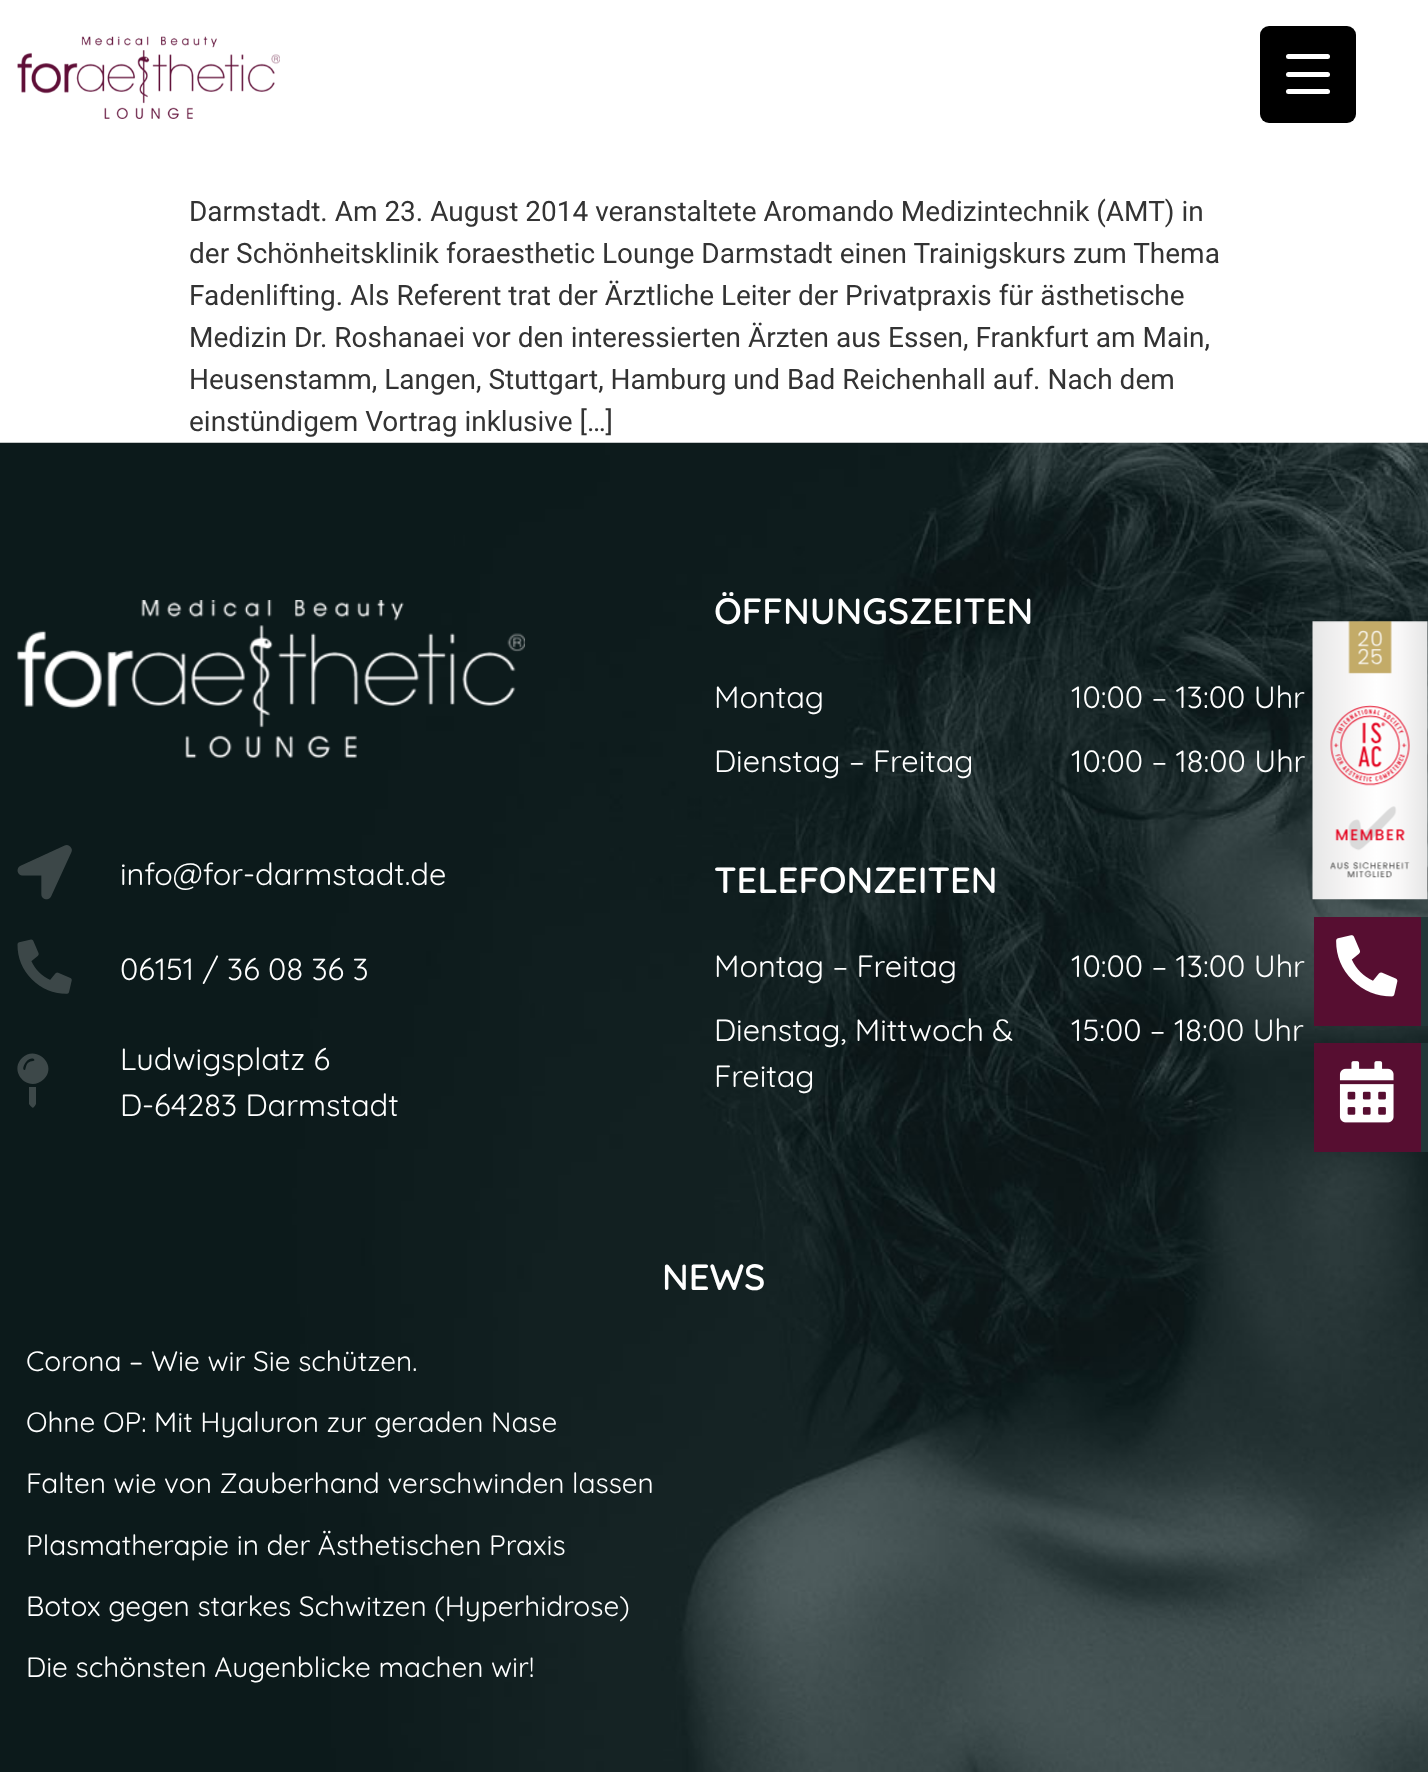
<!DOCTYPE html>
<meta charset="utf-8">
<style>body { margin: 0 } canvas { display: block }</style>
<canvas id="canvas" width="1428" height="1772"></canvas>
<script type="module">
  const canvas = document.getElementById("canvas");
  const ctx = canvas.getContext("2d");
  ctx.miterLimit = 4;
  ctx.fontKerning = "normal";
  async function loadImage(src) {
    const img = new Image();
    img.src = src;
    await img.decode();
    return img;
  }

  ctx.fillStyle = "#ffffff";
  ctx.fillRect(0, 0, 1428, 1772);
  ctx.drawImage(await loadImage("img1.png"), 17, 36, 263, 83);
  ctx.fillStyle = "#000000";
  ctx.beginPath();
  ctx.roundRect(1260, 26, 96, 97, 9);
  ctx.fill();
  ctx.fillStyle = "#ffffff";
  ctx.beginPath();
  ctx.roundRect(1286, 72, 44, 5, 2.5);
  ctx.fill();
  ctx.beginPath();
  ctx.roundRect(1286, 54, 44, 5, 2.5);
  ctx.fill();
  ctx.beginPath();
  ctx.roundRect(1286, 89, 44, 5, 2.5);
  ctx.fill();
  ctx.font = "28px Roboto";
  ctx.fillStyle = "#333333";
  ctx.fillText("Darmstadt. Am 23. August 2014 veranstaltete Aromando Medizintechnik (AMT) in", 189, 221);
  ctx.fillText("der Schönheitsklinik foraesthetic Lounge Darmstadt einen Trainigskurs zum Thema", 189, 263);
  ctx.fillText("Fadenlifting. Als Referent trat der Ärztliche Leiter der Privatpraxis für ästhetische", 189, 305);
  ctx.fillText("Medizin Dr. Roshanaei vor den interessierten Ärzten aus Essen, Frankfurt am Main,", 189, 347);
  ctx.fillText("Heusenstamm, Langen, Stuttgart, Hamburg und Bad Reichenhall auf. Nach dem", 189, 389);
  ctx.fillText("einstündigem Vortrag inklusive […]", 189, 431);
  ctx.drawImage(await loadImage("img2.png"), 0, 442, 1428, 1330);
  ctx.drawImage(await loadImage("img3.png"), 17, 600, 508, 158);
  ctx.drawImage(await loadImage("img4.png"), 17, 845, 55, 55);
  ctx.font = "300 30.75px Quicksand";
  ctx.fillStyle = "#ffffff";
  ctx.fillText("info@for-darmstadt.de", 120, 885);
  ctx.drawImage(await loadImage("img5.png"), 17, 939, 55, 55);
  ctx.fillText("06151 / 36 08 36 3", 120, 980);
  ctx.fillStyle = "#3d4849";
  ctx.beginPath();
  ctx.moveTo(29, 1087);
  ctx.lineTo(36, 1087);
  ctx.lineTo(36, 1104);
  ctx.bezierCurveTo(33, 1109, 33, 1109, 29, 1104);
  ctx.closePath();
  ctx.moveTo(22, 1058);
  ctx.bezierCurveTo(36, 1044, 58, 1065, 44, 1079);
  ctx.bezierCurveTo(29, 1094, 8, 1072, 22, 1058);
  ctx.closePath();
  ctx.moveTo(33, 1061);
  ctx.bezierCurveTo(37, 1061, 32, 1055, 26, 1062);
  ctx.bezierCurveTo(25, 1063, 21, 1070, 25, 1070);
  ctx.bezierCurveTo(26, 1070, 25, 1061, 33, 1061);
  ctx.closePath();
  ctx.fill();
  ctx.fillStyle = "#ffffff";
  ctx.fillText("Ludwigsplatz 6", 120, 1070);
  ctx.fillText("D-64283 Darmstadt", 120, 1116);
  ctx.font = "600 36.5px Quicksand";
  ctx.fillText("ÖFFNUNGSZEITEN", 714, 624);
  ctx.font = "300 30.75px Quicksand";
  ctx.fillText("Montag", 714, 708);
  ctx.fillText("10:00 – 13:00 Uhr", 1071, 708);
  ctx.fillText("Dienstag – Freitag", 714, 772);
  ctx.fillText("10:00 – 18:00 Uhr", 1071, 772);
  ctx.font = "600 36.5px Quicksand";
  ctx.fillText("TELEFONZEITEN", 714, 893);
  ctx.font = "300 30.75px Quicksand";
  ctx.fillText("Montag – Freitag", 714, 977);
  ctx.fillText("10:00 – 13:00 Uhr", 1071, 977);
  ctx.fillText("Dienstag, Mittwoch &", 714, 1041);
  ctx.fillText("Freitag", 714, 1087);
  ctx.fillText("15:00 – 18:00 Uhr", 1071, 1041);
  ctx.font = "600 36.5px Quicksand";
  ctx.fillText("NEWS", 662, 1290);
  ctx.font = "300 28px Quicksand";
  ctx.fillText("Corona – Wie wir Sie schützen.", 26, 1371);
  ctx.fillText("Ohne OP: Mit Hyaluron zur geraden Nase", 26, 1432);
  ctx.fillText("Falten wie von Zauberhand verschwinden lassen", 26, 1493);
  ctx.fillText("Plasmatherapie in der Ästhetischen Praxis", 26, 1555);
  ctx.fillText("Botox gegen starkes Schwitzen (Hyperhidrose)", 26, 1616);
  ctx.fillText("Die schönsten Augenblicke machen wir!", 26, 1677);
  ctx.drawImage(await loadImage("img6.png"), 1312, 621, 116, 279);
  ctx.fillStyle = "#570e31";
  ctx.fillRect(1314, 917, 107, 109);
  ctx.drawImage(await loadImage("img7.png"), 1336, 935, 62, 62);
  ctx.fillStyle = "#233738";
  ctx.fillRect(1421, 917, 7, 109);
  ctx.fillStyle = "#570e31";
  ctx.fillRect(1314, 1043, 107, 109);
  ctx.drawImage(await loadImage("img8.png"), 1339, 1061, 55, 62);
  ctx.fillStyle = "#233738";
  ctx.fillRect(1421, 1043, 7, 109);
</script>
